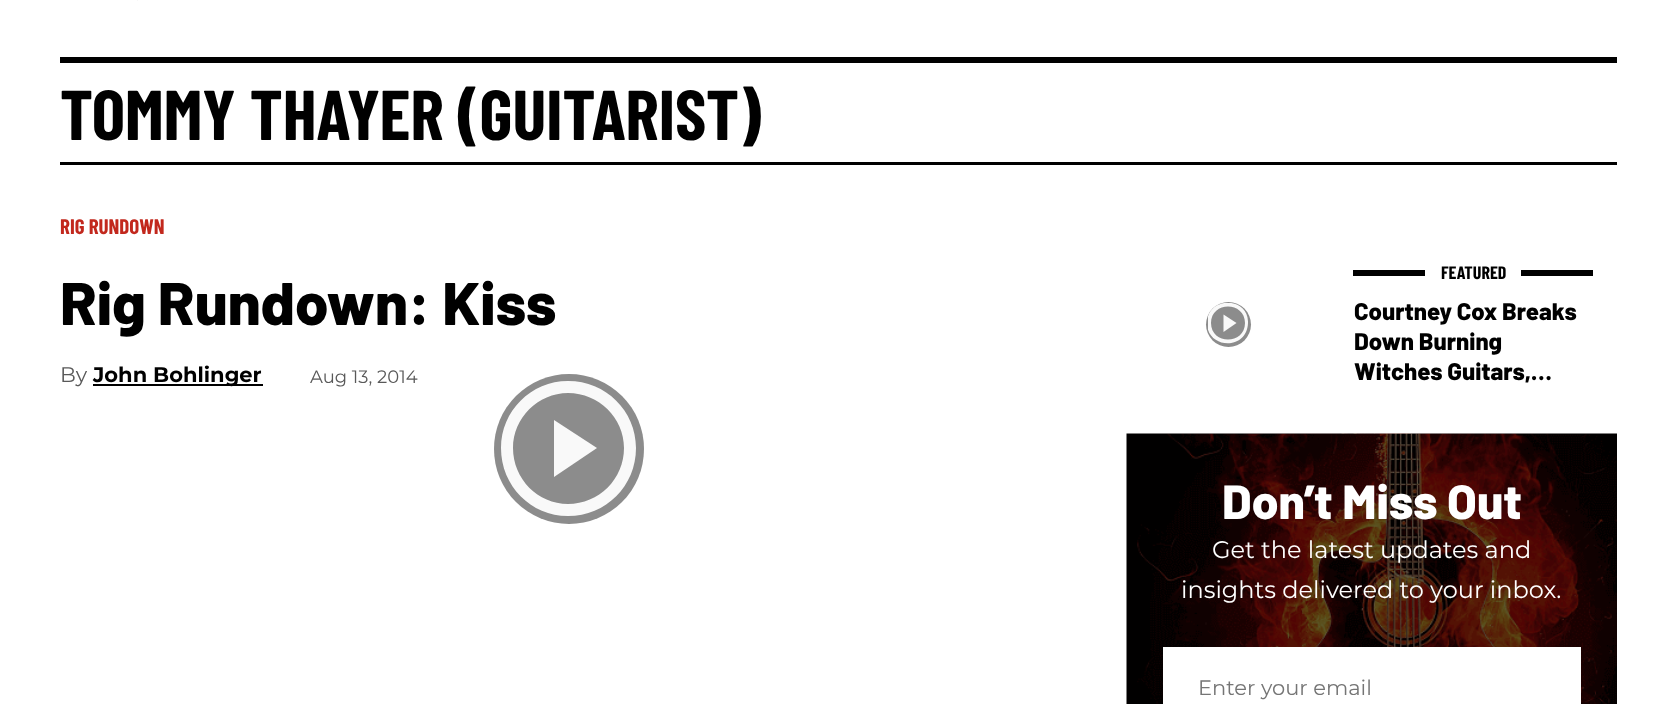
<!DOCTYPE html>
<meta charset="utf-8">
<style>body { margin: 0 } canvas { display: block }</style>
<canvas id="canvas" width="1677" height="704"></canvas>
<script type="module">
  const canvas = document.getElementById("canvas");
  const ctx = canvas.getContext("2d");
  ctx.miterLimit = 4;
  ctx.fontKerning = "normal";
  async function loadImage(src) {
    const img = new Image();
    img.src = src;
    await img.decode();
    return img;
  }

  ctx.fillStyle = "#ffffff";
  ctx.fillRect(0, 0, 1677, 704);
  ctx.fillStyle = "#f7f7f7";
  ctx.fillRect(137, 0, 1, 1);
  ctx.fillStyle = "#000000";
  ctx.fillRect(60, 57, 1557, 6);
  ctx.fillRect(60, 162, 1557, 3);
  ctx.font = "bold 70.5px Barlow Condensed";
  ctx.fillText("TOMMY THAYER (GUITARIST)", 60, 140);
  ctx.font = "bold 21px Barlow Condensed";
  ctx.fillStyle = "#c2281d";
  ctx.fillText("RIG RUNDOWN", 60, 234);
  ctx.font = "800 60px Barlow";
  ctx.fillStyle = "#000000";
  ctx.fillText("Rig Rundown: Kiss", 60, 325);
  ctx.font = "21px Montserrat";
  ctx.fillStyle = "#595959";
  ctx.fillText("By", 60, 382);
  ctx.fillStyle = "#000000";
  ctx.fillRect(93, 384, 170, 2);
  ctx.font = "bold 21px Montserrat";
  ctx.fillText("John Bohlinger", 93, 382);
  ctx.font = "18px Montserrat";
  ctx.fillStyle = "#595959";
  ctx.fillText("Aug 13, 2014", 310, 383);
  ctx.fillStyle = "#8c8c8c";
  ctx.beginPath();
  ctx.arc(569, 449, 75, 0, Math.PI * 2);
  ctx.fill();
  ctx.fillStyle = "#f9f9f9";
  ctx.beginPath();
  ctx.moveTo(624, 448);
  ctx.bezierCurveTo(624, 418, 599, 393, 568, 393);
  ctx.bezierCurveTo(538, 393, 513, 418, 513, 448);
  ctx.bezierCurveTo(513, 479, 538, 504, 568, 504);
  ctx.bezierCurveTo(599, 504, 624, 479, 624, 448);
  ctx.closePath();
  ctx.moveTo(501, 448);
  ctx.bezierCurveTo(501, 411, 531, 381, 568, 381);
  ctx.bezierCurveTo(606, 381, 636, 411, 636, 448);
  ctx.bezierCurveTo(636, 486, 606, 516, 568, 516);
  ctx.bezierCurveTo(531, 516, 501, 486, 501, 448);
  ctx.closePath();
  ctx.fill();
  ctx.beginPath();
  ctx.moveTo(554, 477);
  ctx.lineTo(554, 420);
  ctx.lineTo(597, 448);
  ctx.closePath();
  ctx.fill();
  ctx.fillStyle = "#8c8c8c";
  ctx.beginPath();
  ctx.arc(1228.5, 324.5, 22.5, 0, Math.PI * 2);
  ctx.fill();
  ctx.save();
  ctx.beginPath();
  ctx.rect(1208, 303, 40, 41);
  ctx.clip();
  ctx.fillStyle = "#f9f9f9";
  ctx.beginPath();
  ctx.moveTo(1207, 323);
  ctx.bezierCurveTo(1207, 296, 1249, 296, 1248, 323);
  ctx.bezierCurveTo(1247, 351, 1207, 349, 1207, 323);
  ctx.closePath();
  ctx.moveTo(1245, 323);
  ctx.bezierCurveTo(1245, 345, 1211, 345, 1211, 323);
  ctx.bezierCurveTo(1211, 301, 1245, 301, 1245, 323);
  ctx.closePath();
  ctx.fill("evenodd");
  ctx.restore();
  ctx.fillStyle = "#f9f9f9";
  ctx.beginPath();
  ctx.moveTo(1223.5, 332);
  ctx.lineTo(1223.5, 314.5);
  ctx.lineTo(1236.5, 323);
  ctx.closePath();
  ctx.fill();
  ctx.fillStyle = "#000000";
  ctx.fillRect(1353, 270, 240, 6);
  ctx.fillStyle = "#ffffff";
  ctx.fillRect(1425, 270, 96, 6);
  ctx.font = "bold 18px Barlow Condensed";
  ctx.fillStyle = "#000000";
  ctx.fillText("FEATURED", 1441, 279);
  ctx.font = "800 24px Barlow";
  ctx.fillText("Courtney Cox Breaks", 1354, 320);
  ctx.fillText("Down Burning", 1354, 350);
  ctx.fillText("Witches Guitars,…", 1354, 380);
  ctx.drawImage(await loadImage("img1.png"), 1126, 433, 491, 271);
  ctx.font = "800 48px Barlow";
  ctx.fillStyle = "#ffffff";
  ctx.fillText("Don’t Miss Out", 1222, 519);
  ctx.font = "24px Montserrat";
  ctx.fillText("Get the latest updates and", 1212, 558);
  ctx.fillText("insights delivered to your inbox.", 1181, 598);
  ctx.fillRect(1163, 647, 418, 57);
  ctx.font = "21px Montserrat";
  ctx.fillStyle = "#757575";
  ctx.fillText("Enter your email", 1198, 695);
</script>
